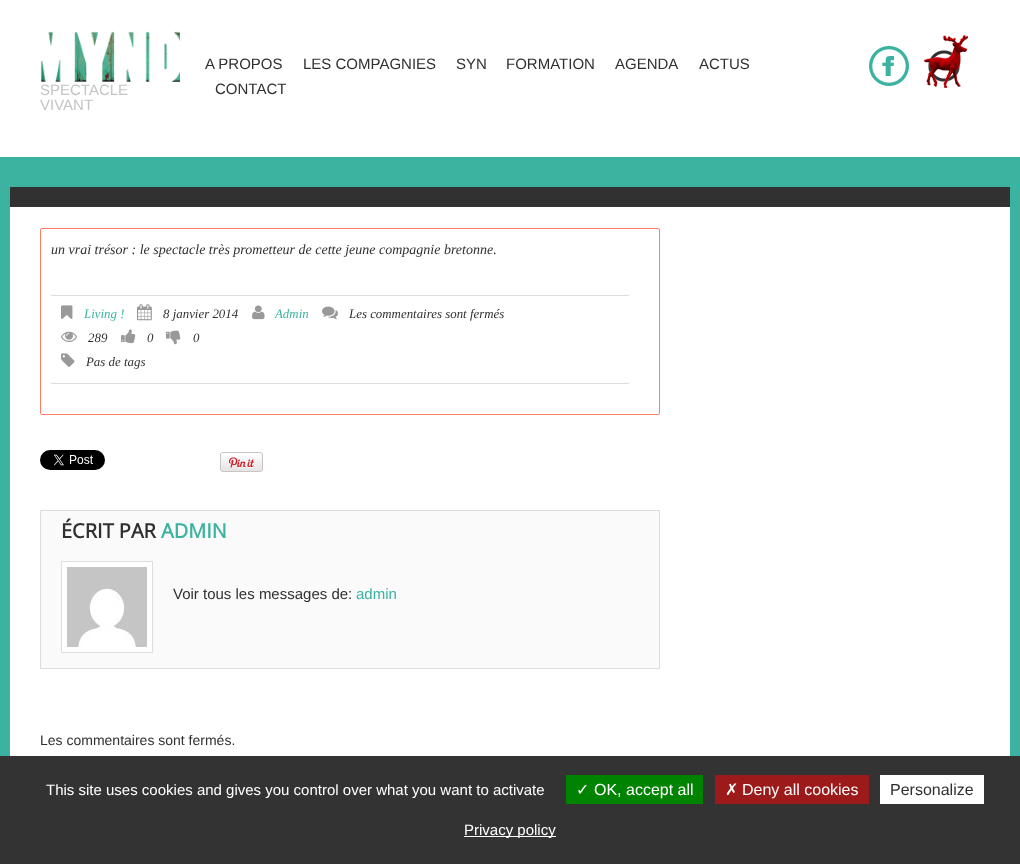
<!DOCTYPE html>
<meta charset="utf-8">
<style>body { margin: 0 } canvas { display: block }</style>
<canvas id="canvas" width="1020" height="864"></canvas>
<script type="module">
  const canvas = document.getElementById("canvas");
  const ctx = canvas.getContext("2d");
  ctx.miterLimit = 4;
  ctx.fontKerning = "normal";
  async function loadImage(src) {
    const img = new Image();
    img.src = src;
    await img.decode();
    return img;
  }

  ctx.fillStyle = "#3cb3a1";
  ctx.fillRect(0, 0, 1020, 864);
  ctx.fillStyle = "#ffffff";
  ctx.fillRect(0, 0, 1020, 157);
  ctx.drawImage(await loadImage("img1.png"), 40, 31, 140, 51);
  ctx.font = "15px Liberation Sans";
  ctx.fillStyle = "#c4c4c4";
  ctx.fillText("SPECTACLE", 40, 95);
  ctx.fillText("VIVANT", 40, 110);
  ctx.fillStyle = "#303030";
  ctx.fillText("A PROPOS", 205, 69);
  ctx.fillText("LES COMPAGNIES", 303, 69);
  ctx.fillText("SYN", 456, 69);
  ctx.fillText("FORMATION", 506, 69);
  ctx.fillText("AGENDA", 615, 69);
  ctx.fillText("ACTUS", 699, 69);
  ctx.fillText("CONTACT", 215, 94);
  ctx.drawImage(await loadImage("img2.png"), 869, 46, 40, 40);
  ctx.drawImage(await loadImage("img3.png"), 924, 35, 44, 53);
  ctx.fillStyle = "#ffffff";
  ctx.fillRect(10, 207, 1000, 549);
  ctx.fillStyle = "#313131";
  ctx.fillRect(10, 187, 1000, 20);
  ctx.beginPath();
  ctx.roundRect(40.5, 228.5, 619, 186, 1.5);
  ctx.strokeStyle = "#ff7f66";
  ctx.stroke();
  ctx.font = "italic 14px Liberation Serif";
  ctx.fillStyle = "#303030";
  ctx.fillText("un vrai trésor : le spectacle très prometteur de cette jeune compagnie bretonne.", 51, 254);
  ctx.fillStyle = "#dddddd";
  ctx.fillRect(51, 295, 578, 1);
  ctx.fillRect(51, 383, 578, 1);
  ctx.drawImage(await loadImage("img4.png"), 61, 305, 12, 14);
  ctx.font = "italic 12.9px Liberation Serif";
  ctx.fillStyle = "#3cb3a1";
  ctx.fillText("Living !", 84, 318);
  ctx.drawImage(await loadImage("img5.png"), 137, 304, 15, 17);
  ctx.fillStyle = "#303030";
  ctx.fillText("8 janvier 2014", 163, 318);
  ctx.drawImage(await loadImage("img6.png"), 252, 305, 13, 15);
  ctx.fillStyle = "#3cb3a1";
  ctx.fillText("Admin", 275, 318);
  ctx.drawImage(await loadImage("img7.png"), 322, 306, 16, 14);
  ctx.fillStyle = "#303030";
  ctx.fillText("Les commentaires sont fermés", 349, 318);
  ctx.drawImage(await loadImage("img8.png"), 61, 331, 16, 11);
  ctx.fillText("289", 88, 342);
  ctx.drawImage(await loadImage("img9.png"), 121, 329, 15, 15);
  ctx.fillText("0", 147, 342);
  ctx.drawImage(await loadImage("img10.png"), 166, 330, 15, 15);
  ctx.fillText("0", 193, 342);
  ctx.drawImage(await loadImage("img11.png"), 61, 353, 14, 14);
  ctx.fillText("Pas de tags", 86, 366);
  ctx.drawImage(await loadImage("img12.png"), 40, 450, 65, 20);
  ctx.drawImage(await loadImage("img13.png"), 220, 452, 43, 20);
  ctx.fillStyle = "#fafafa";
  ctx.beginPath();
  ctx.rect(40.5, 510.5, 619, 158);
  ctx.fill();
  ctx.strokeStyle = "#dddddd";
  ctx.stroke();
  ctx.font = "bold 20px Open Sans";
  ctx.fillStyle = "#303030";
  ctx.fillText("ÉCRIT PAR", 61, 538);
  ctx.fillStyle = "#3cb3a1";
  ctx.fillText("ADMIN", 161, 538);
  ctx.fillStyle = "#ffffff";
  ctx.beginPath();
  ctx.rect(61.5, 561.5, 91, 91);
  ctx.fill();
  ctx.stroke();
  ctx.drawImage(await loadImage("img14.png"), 67, 567, 80, 80);
  ctx.font = "15px Liberation Sans";
  ctx.fillStyle = "#303030";
  ctx.fillText("Voir tous les messages de:", 173, 599);
  ctx.fillStyle = "#3cb3a1";
  ctx.fillText("admin", 356, 599);
  ctx.font = "14px Liberation Sans";
  ctx.fillStyle = "#303030";
  ctx.fillText("Les commentaires sont fermés.", 40, 745);
  ctx.fillStyle = "#333333";
  ctx.fillRect(0, 756, 1020, 108);
  ctx.font = "15px Liberation Sans";
  ctx.fillStyle = "#ffffff";
  ctx.fillText("This site uses cookies and gives you control over what you want to activate", 46, 795);
  ctx.fillStyle = "#008300";
  ctx.fillRect(566, 775, 137, 29);
  ctx.font = "16px DejaVu Sans";
  ctx.fillStyle = "#ffffff";
  ctx.fillText("✓", 576, 795);
  ctx.font = "16px Liberation Sans";
  ctx.fillText("OK, accept all", 594, 795);
  ctx.fillStyle = "#9c1a1a";
  ctx.fillRect(715, 775, 154, 29);
  ctx.font = "16px DejaVu Sans";
  ctx.fillStyle = "#ffffff";
  ctx.fillText("✗", 725, 795);
  ctx.font = "16px Liberation Sans";
  ctx.fillText("Deny all cookies", 742, 795);
  ctx.fillRect(880, 775, 104, 29);
  ctx.fillStyle = "#303030";
  ctx.fillText("Personalize", 890, 795);
  ctx.fillStyle = "#ffffff";
  ctx.fillRect(464, 836, 92, 1);
  ctx.font = "15px Liberation Sans";
  ctx.fillText("Privacy policy", 464, 835);
</script>
